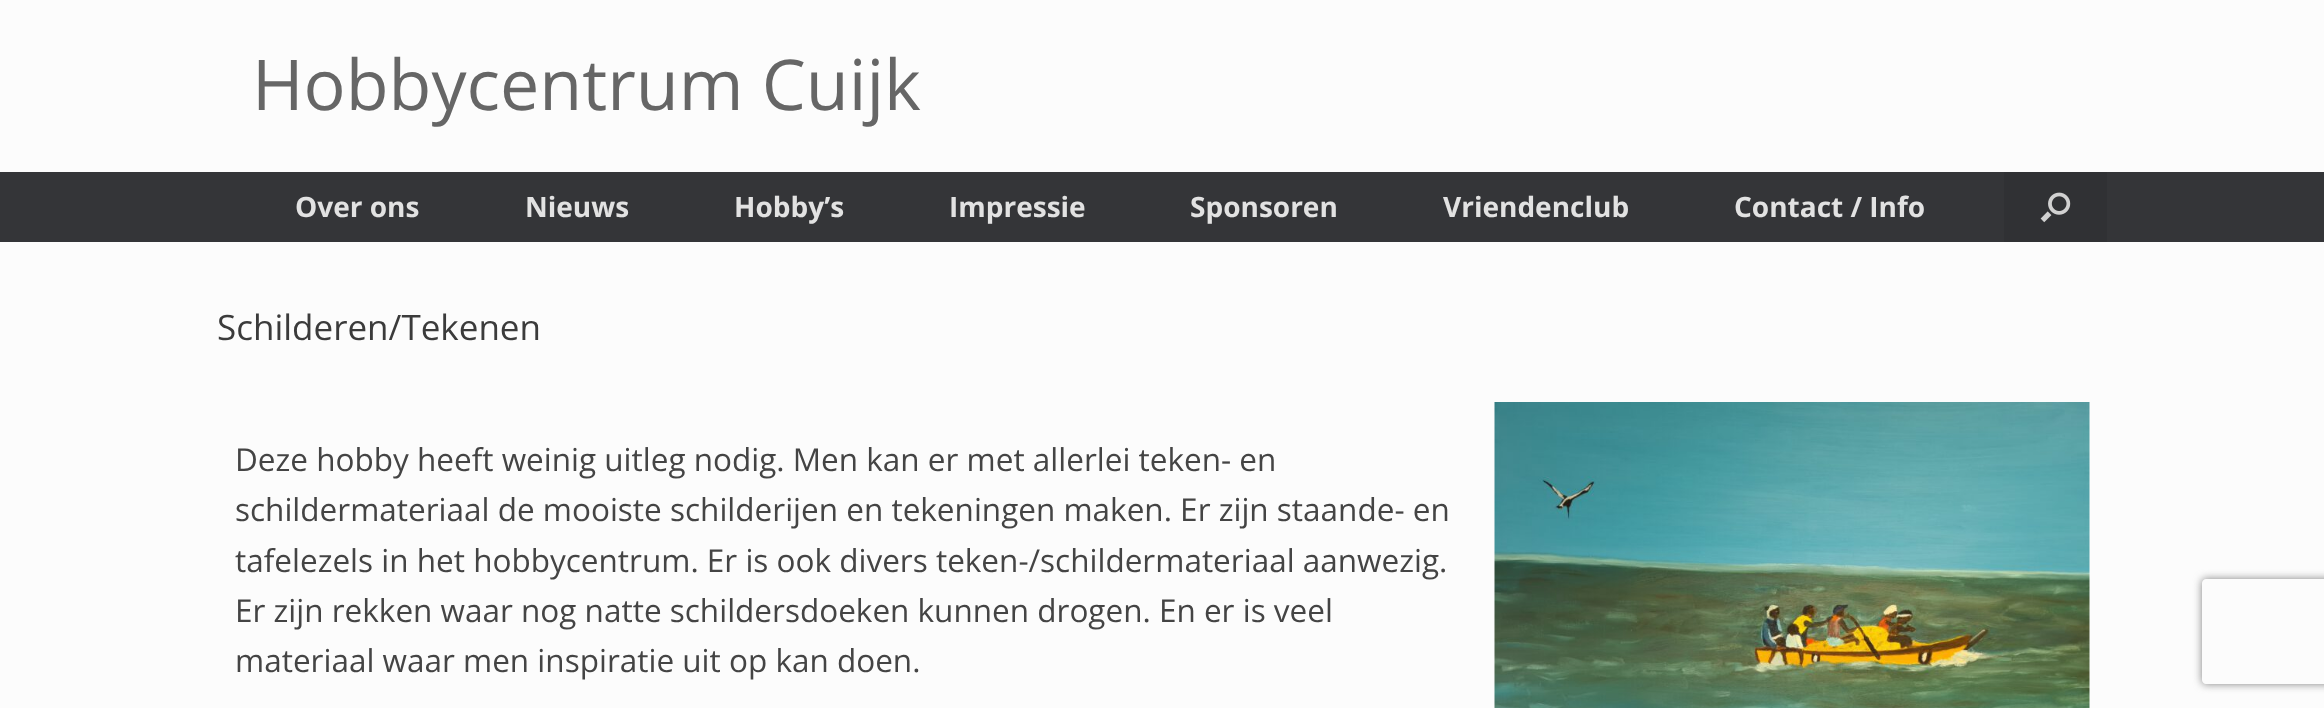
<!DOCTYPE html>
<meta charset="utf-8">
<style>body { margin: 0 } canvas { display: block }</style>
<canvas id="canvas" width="2324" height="708"></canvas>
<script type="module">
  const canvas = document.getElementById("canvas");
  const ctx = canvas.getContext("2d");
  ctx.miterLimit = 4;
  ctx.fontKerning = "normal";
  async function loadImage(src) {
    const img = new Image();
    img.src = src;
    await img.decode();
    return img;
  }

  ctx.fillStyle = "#fcfcfc";
  ctx.fillRect(0, 0, 2324, 708);
  ctx.font = "70px Open Sans";
  ctx.fillStyle = "#666666";
  ctx.fillText("Hobbycentrum Cuijk", 252, 110);
  ctx.fillStyle = "#343538";
  ctx.fillRect(0, 172, 2324, 70);
  ctx.font = "bold 28px Open Sans";
  ctx.fillStyle = "#e2e2e2";
  ctx.fillText("Over ons", 295, 217);
  ctx.fillText("Nieuws", 525, 217);
  ctx.fillText("Hobby’s", 734, 217);
  ctx.fillText("Impressie", 949, 217);
  ctx.fillText("Sponsoren", 1190, 217);
  ctx.fillText("Vriendenclub", 1443, 217);
  ctx.fillText("Contact / Info", 1734, 217);
  ctx.fillStyle = "#303134";
  ctx.fillRect(2004, 172, 103, 70);
  ctx.drawImage(await loadImage("img1.png"), 2040, 192, 31, 31);
  ctx.font = "35px Open Sans";
  ctx.fillStyle = "#3b3b3b";
  ctx.fillText("Schilderen/Tekenen", 217, 340);
  ctx.font = "31.5px Open Sans";
  ctx.fillStyle = "#444444";
  ctx.fillText("Deze hobby heeft weinig uitleg nodig. Men kan er met allerlei teken- en", 235, 471);
  ctx.fillText("schildermateriaal de mooiste schilderijen en tekeningen maken. Er zijn staande- en", 235, 521);
  ctx.fillText("tafelezels in het hobbycentrum. Er is ook divers teken-/schildermateriaal aanwezig.", 235, 572);
  ctx.fillText("Er zijn rekken waar nog natte schildersdoeken kunnen drogen. En er is veel", 235, 622);
  ctx.fillText("materiaal waar men inspiratie uit op kan doen.", 235, 672);
  ctx.drawImage(await loadImage("img2.png"), 1494, 402, 596, 306);
  ctx.save();
  ctx.beginPath();
  ctx.moveTo(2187, 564);
  ctx.lineTo(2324, 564);
  ctx.lineTo(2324, 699);
  ctx.lineTo(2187, 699);
  ctx.closePath();
  ctx.moveTo(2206, 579);
  ctx.lineTo(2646, 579);
  ctx.bezierCurveTo(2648, 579, 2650, 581, 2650, 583);
  ctx.lineTo(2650, 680);
  ctx.bezierCurveTo(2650, 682, 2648, 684, 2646, 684);
  ctx.lineTo(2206, 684);
  ctx.bezierCurveTo(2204, 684, 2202, 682, 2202, 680);
  ctx.lineTo(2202, 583);
  ctx.bezierCurveTo(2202, 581, 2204, 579, 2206, 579);
  ctx.closePath();
  ctx.clip("evenodd");
  ctx.fillStyle = "#808080";
  ctx.filter = "blur(4.5px)";
  ctx.beginPath();
  ctx.roundRect(2202, 579, 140, 105, 4);
  ctx.fill();
  ctx.filter = "none";
  ctx.restore();
</script>
